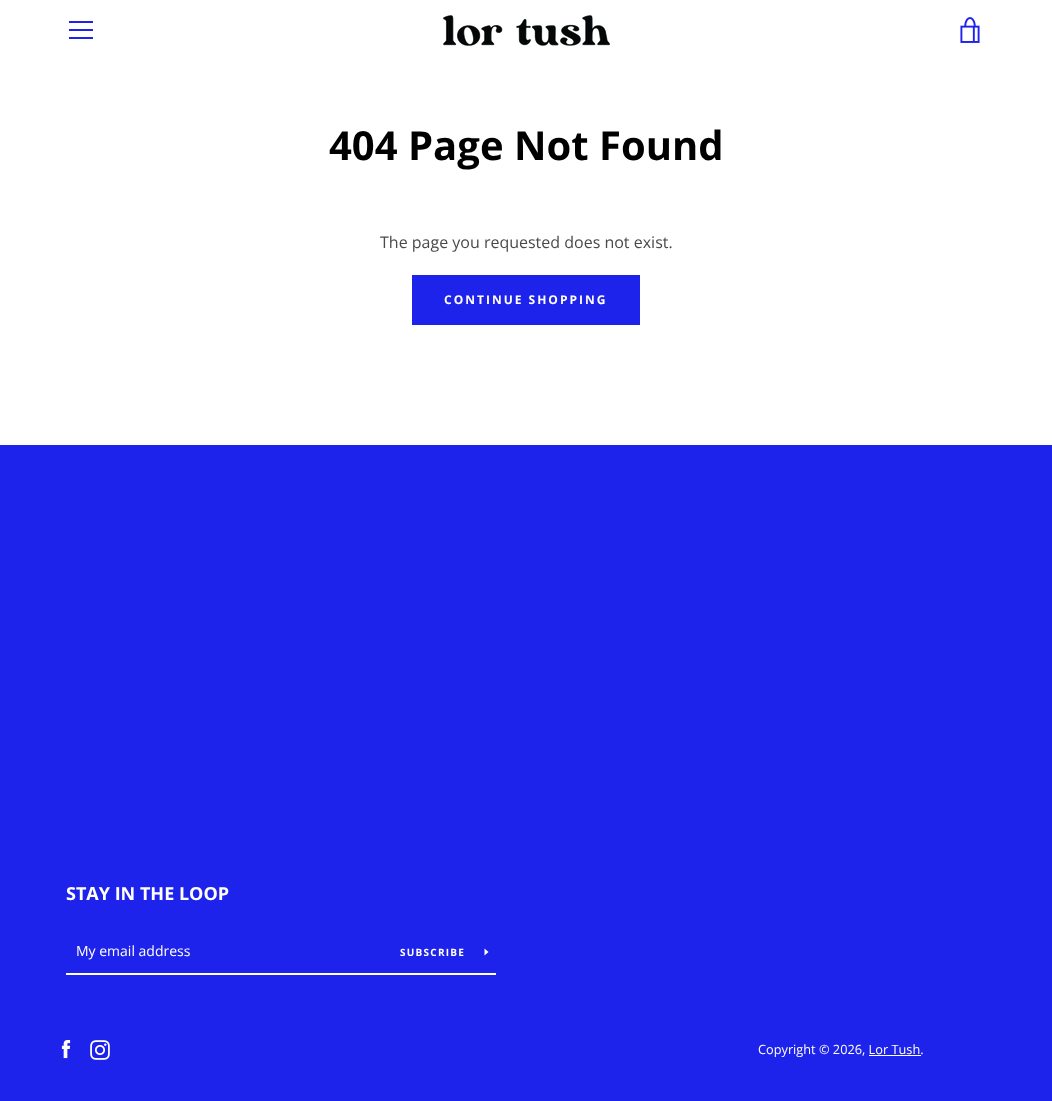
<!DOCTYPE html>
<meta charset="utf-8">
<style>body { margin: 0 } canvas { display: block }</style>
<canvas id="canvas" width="1052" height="1101"></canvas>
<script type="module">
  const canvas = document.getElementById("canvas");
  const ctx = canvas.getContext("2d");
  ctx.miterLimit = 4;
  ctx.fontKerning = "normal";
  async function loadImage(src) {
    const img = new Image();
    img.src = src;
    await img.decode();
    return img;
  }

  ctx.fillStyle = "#1e23eb";
  ctx.fillRect(0, 0, 1052, 1101);
  ctx.fillStyle = "#ffffff";
  ctx.fillRect(0, 0, 1052, 445);
  ctx.fillStyle = "#1e23eb";
  ctx.fillRect(69, 21, 24, 2);
  ctx.fillRect(69, 29, 24, 2);
  ctx.fillRect(69, 37, 24, 2);
  ctx.drawImage(await loadImage("img1.png"), 443, 15, 167, 31);
  ctx.drawImage(await loadImage("img2.png"), 960, 17, 20, 26);
  ctx.font = "bold 40px Open Sans";
  ctx.fillStyle = "#000000";
  ctx.fillText("404 Page Not Found", 329, 160);
  ctx.font = "16px Open Sans";
  ctx.fillStyle = "#4a4a4a";
  ctx.fillText("The page you requested does not exist.", 380, 248);
  ctx.fillStyle = "#1e23eb";
  ctx.fillRect(412, 275, 228, 50);
  ctx.letterSpacing = "2px";
  ctx.font = "bold 12px Open Sans";
  ctx.fillStyle = "#ffffff";
  ctx.fillText("CONTINUE SHOPPING", 444, 304);
  ctx.letterSpacing = "0px";
  ctx.font = "bold 18px Open Sans";
  ctx.fillText("STAY IN THE LOOP", 66, 900);
  ctx.fillRect(66, 973, 430, 2);
  ctx.font = "14px Open Sans";
  ctx.fillText("My email address", 76, 956);
  ctx.letterSpacing = "1.25px";
  ctx.font = "bold 10px Open Sans";
  ctx.fillText("SUBSCRIBE", 400, 956);
  ctx.beginPath();
  ctx.moveTo(488.5, 952);
  ctx.lineTo(484.5, 955.5);
  ctx.lineTo(484.5, 948.5);
  ctx.closePath();
  ctx.fill();
  ctx.drawImage(await loadImage("img3.png"), 61, 1040, 10, 19);
  ctx.drawImage(await loadImage("img4.png"), 90, 1040, 20, 20);
  ctx.letterSpacing = "0px";
  ctx.font = "12.75px Open Sans";
  ctx.fillText("Copyright © 2026, Lor Tush.", 758, 1054);
  ctx.fillRect(869, 1055, 52, 1);
</script>
